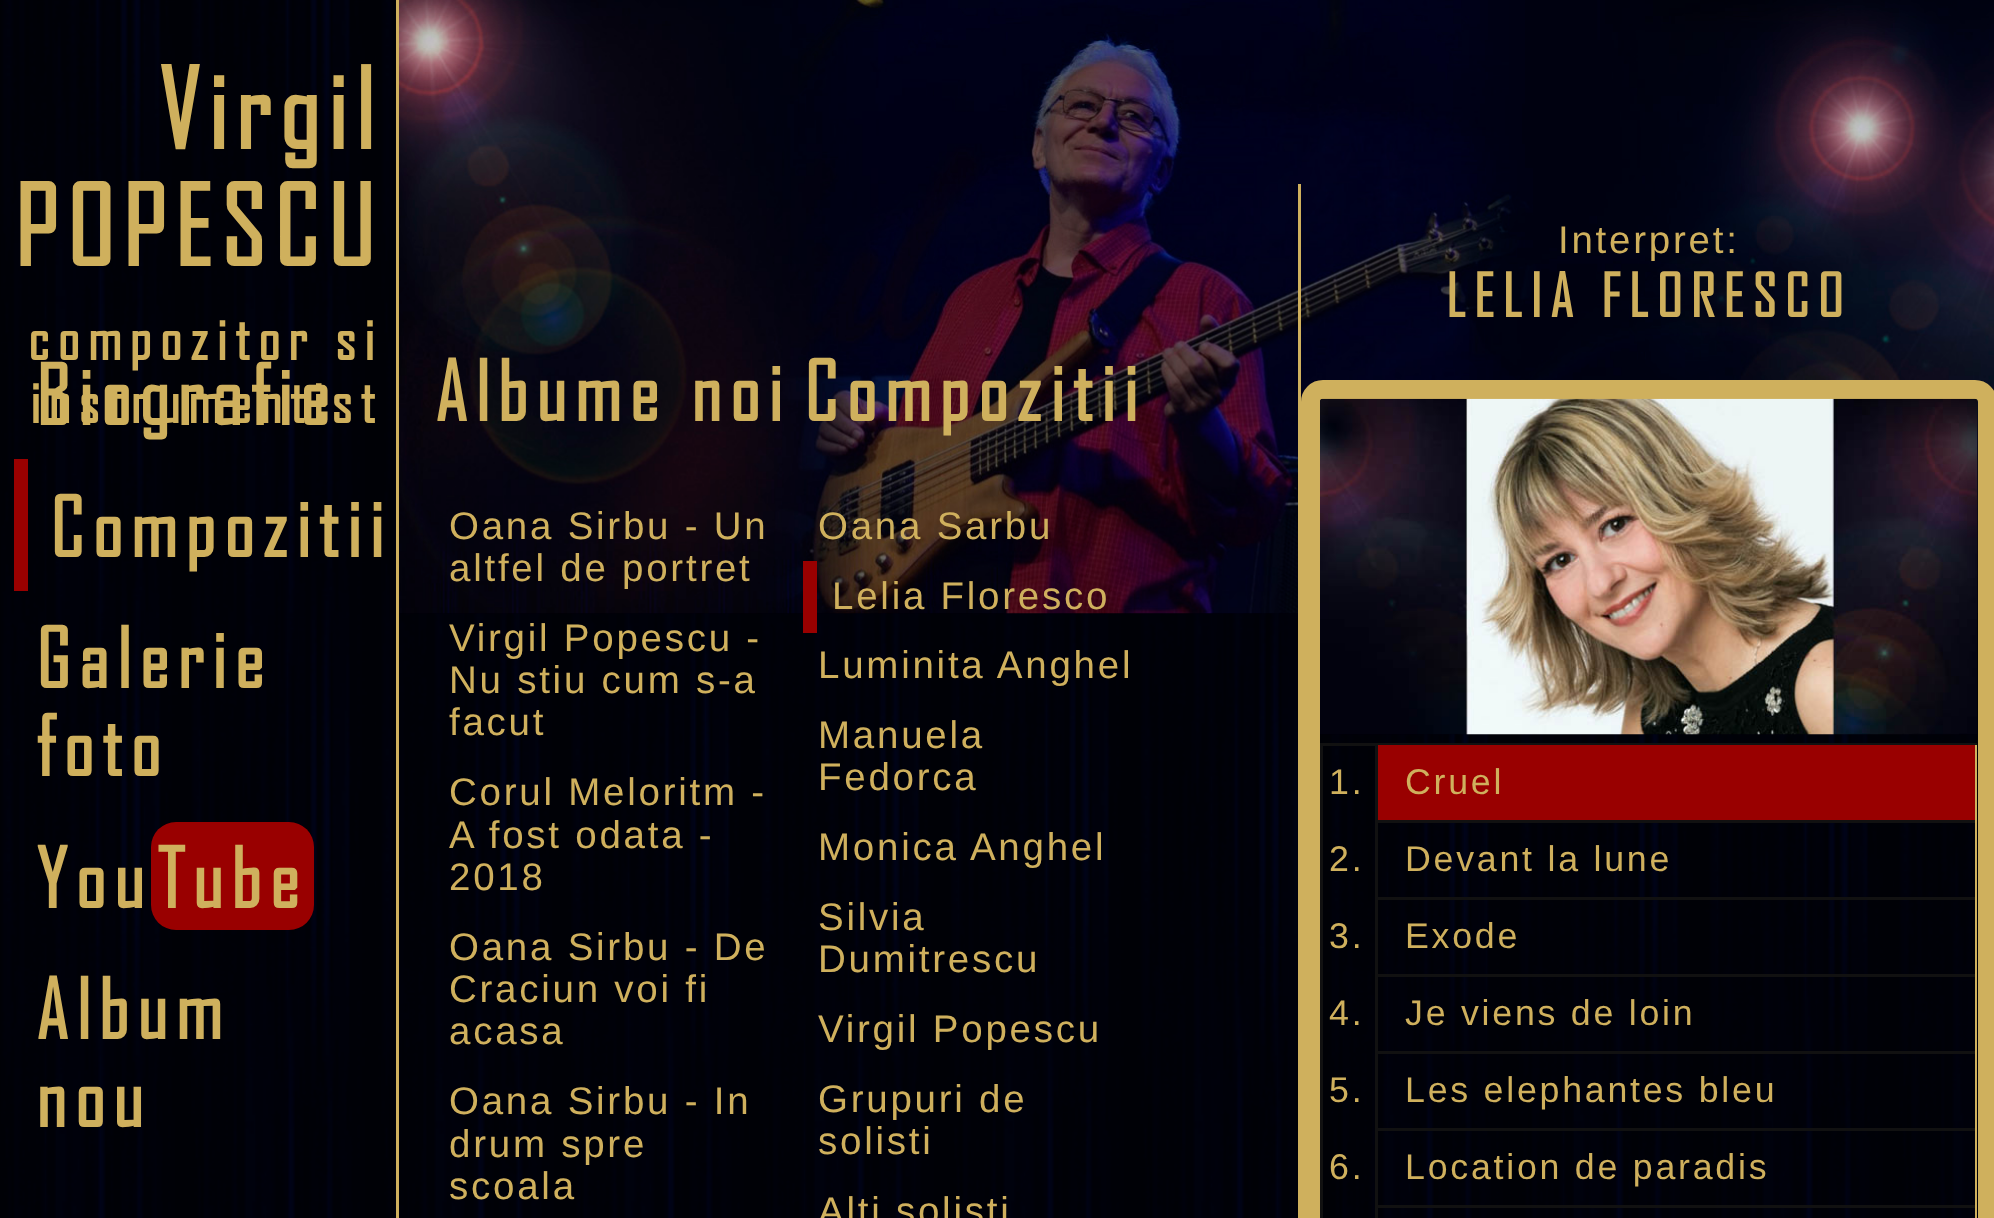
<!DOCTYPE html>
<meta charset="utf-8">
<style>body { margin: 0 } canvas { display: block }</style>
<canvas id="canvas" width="1994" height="1218"></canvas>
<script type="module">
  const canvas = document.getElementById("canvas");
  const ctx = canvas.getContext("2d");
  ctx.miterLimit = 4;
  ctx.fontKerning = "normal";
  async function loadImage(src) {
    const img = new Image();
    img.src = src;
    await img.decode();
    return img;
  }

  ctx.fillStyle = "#ffffff";
  ctx.fillRect(0, 0, 1994, 1218);
  ctx.drawImage(await loadImage("img1.png"), 0, 0, 1978, 1218);
  ctx.fillStyle = "#cfb05d";
  ctx.fillRect(396, 0, 3, 1218);
  ctx.letterSpacing = "8.25px";
  ctx.font = "bold 107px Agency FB";
  ctx.fillText("Virgil", 158, 149);
  ctx.fillText("POPESCU", 14, 266);
  ctx.font = "bold 57.75px Agency FB";
  ctx.fillText("compozitor si", 28, 360);
  ctx.fillText("instrumentist", 30, 423);
  ctx.font = "bold 79.75px Agency FB";
  ctx.fillText("Biografie", 36, 425);
  ctx.fillStyle = "#990000";
  ctx.fillRect(14, 459, 14, 132);
  ctx.fillStyle = "#cfb05d";
  ctx.fillText("Compozitii", 50, 557);
  ctx.fillText("Galerie", 36, 688);
  ctx.fillText("foto", 36, 776);
  ctx.fillText("You", 36, 908);
  ctx.fillStyle = "#990000";
  ctx.beginPath();
  ctx.roundRect(151, 822, 163, 108, 25);
  ctx.fill();
  ctx.fillStyle = "#cfb05d";
  ctx.fillText("Tube", 157, 908);
  ctx.fillText("Album", 36, 1039);
  ctx.fillText("nou", 36, 1127);
  ctx.drawImage(await loadImage("img2.png"), 399, 0, 1595, 614);
  ctx.fillText("Albume noi", 435, 421);
  ctx.letterSpacing = "2.75px";
  ctx.font = "38.5px Liberation Sans";
  ctx.fillText("Oana Sirbu - Un", 449, 539);
  ctx.fillText("altfel de portret", 449, 581);
  ctx.fillText("Virgil Popescu -", 449, 651);
  ctx.fillText("Nu stiu cum s-a", 449, 693);
  ctx.fillText("facut", 449, 735);
  ctx.fillText("Corul Meloritm -", 449, 805);
  ctx.fillText("A fost odata -", 449, 848);
  ctx.fillText("2018", 449, 890);
  ctx.fillText("Oana Sirbu - De", 449, 960);
  ctx.fillText("Craciun voi fi", 449, 1002);
  ctx.fillText("acasa", 449, 1044);
  ctx.fillText("Oana Sirbu - In", 449, 1114);
  ctx.fillText("drum spre", 449, 1157);
  ctx.fillText("scoala", 449, 1199);
  ctx.letterSpacing = "8.25px";
  ctx.font = "bold 79.75px Agency FB";
  ctx.fillText("Compozitii", 804, 421);
  ctx.letterSpacing = "2.75px";
  ctx.font = "38.5px Liberation Sans";
  ctx.fillText("Oana Sarbu", 818, 539);
  ctx.fillStyle = "#990000";
  ctx.fillRect(803, 561, 14, 72);
  ctx.fillStyle = "#cfb05d";
  ctx.fillText("Lelia Floresco", 832, 609);
  ctx.fillText("Luminita Anghel", 818, 678);
  ctx.fillText("Manuela", 818, 748);
  ctx.fillText("Fedorca", 818, 790);
  ctx.fillText("Monica Anghel", 818, 860);
  ctx.fillText("Silvia", 818, 930);
  ctx.fillText("Dumitrescu", 818, 972);
  ctx.fillText("Virgil Popescu", 818, 1042);
  ctx.fillText("Grupuri de", 818, 1112);
  ctx.fillText("solisti", 818, 1154);
  ctx.fillText("Alti solisti", 818, 1224);
  ctx.fillRect(1298, 184, 3, 1034);
  ctx.fillText("Interpret:", 1558, 253);
  ctx.letterSpacing = "8.25px";
  ctx.font = "bold 57.75px Agency FB";
  ctx.fillText("LELIA FLORESCO", 1446, 317);
  ctx.beginPath();
  ctx.roundRect(1310.5, 389.5, 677, 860, 12.5);
  ctx.strokeStyle = "#cfb05d";
  ctx.lineWidth = 19;
  ctx.stroke();
  ctx.drawImage(await loadImage("img3.png"), 1320, 398, 657, 337);
  ctx.fillStyle = "#111111";
  ctx.fillRect(1320, 743, 657, 3);
  ctx.fillRect(1320, 743, 3, 475);
  ctx.fillStyle = "#cfb05d";
  ctx.fillRect(1975, 745, 2, 473);
  ctx.fillStyle = "#111111";
  ctx.fillRect(1375, 745, 3, 473);
  ctx.fillRect(1378, 820, 597, 3);
  ctx.letterSpacing = "2.75px";
  ctx.font = "35.75px Liberation Sans";
  ctx.fillStyle = "#cfb05d";
  ctx.fillText("1.", 1329, 794);
  ctx.fillStyle = "#990000";
  ctx.fillRect(1378, 745, 597, 75);
  ctx.fillStyle = "#cfb05d";
  ctx.fillText("Cruel", 1405, 794);
  ctx.fillStyle = "#111111";
  ctx.fillRect(1378, 897, 597, 3);
  ctx.fillStyle = "#cfb05d";
  ctx.fillText("2.", 1329, 871);
  ctx.fillText("Devant la lune", 1405, 871);
  ctx.fillStyle = "#111111";
  ctx.fillRect(1378, 974, 597, 3);
  ctx.fillStyle = "#cfb05d";
  ctx.fillText("3.", 1329, 948);
  ctx.fillText("Exode", 1405, 948);
  ctx.fillStyle = "#111111";
  ctx.fillRect(1378, 1051, 597, 3);
  ctx.fillStyle = "#cfb05d";
  ctx.fillText("4.", 1329, 1025);
  ctx.fillText("Je viens de loin", 1405, 1025);
  ctx.fillStyle = "#111111";
  ctx.fillRect(1378, 1128, 597, 3);
  ctx.fillStyle = "#cfb05d";
  ctx.fillText("5.", 1329, 1102);
  ctx.fillText("Les elephantes bleu", 1405, 1102);
  ctx.fillStyle = "#111111";
  ctx.fillRect(1378, 1205, 597, 3);
  ctx.fillStyle = "#cfb05d";
  ctx.fillText("6.", 1329, 1179);
  ctx.fillText("Location de paradis", 1405, 1179);
</script>
